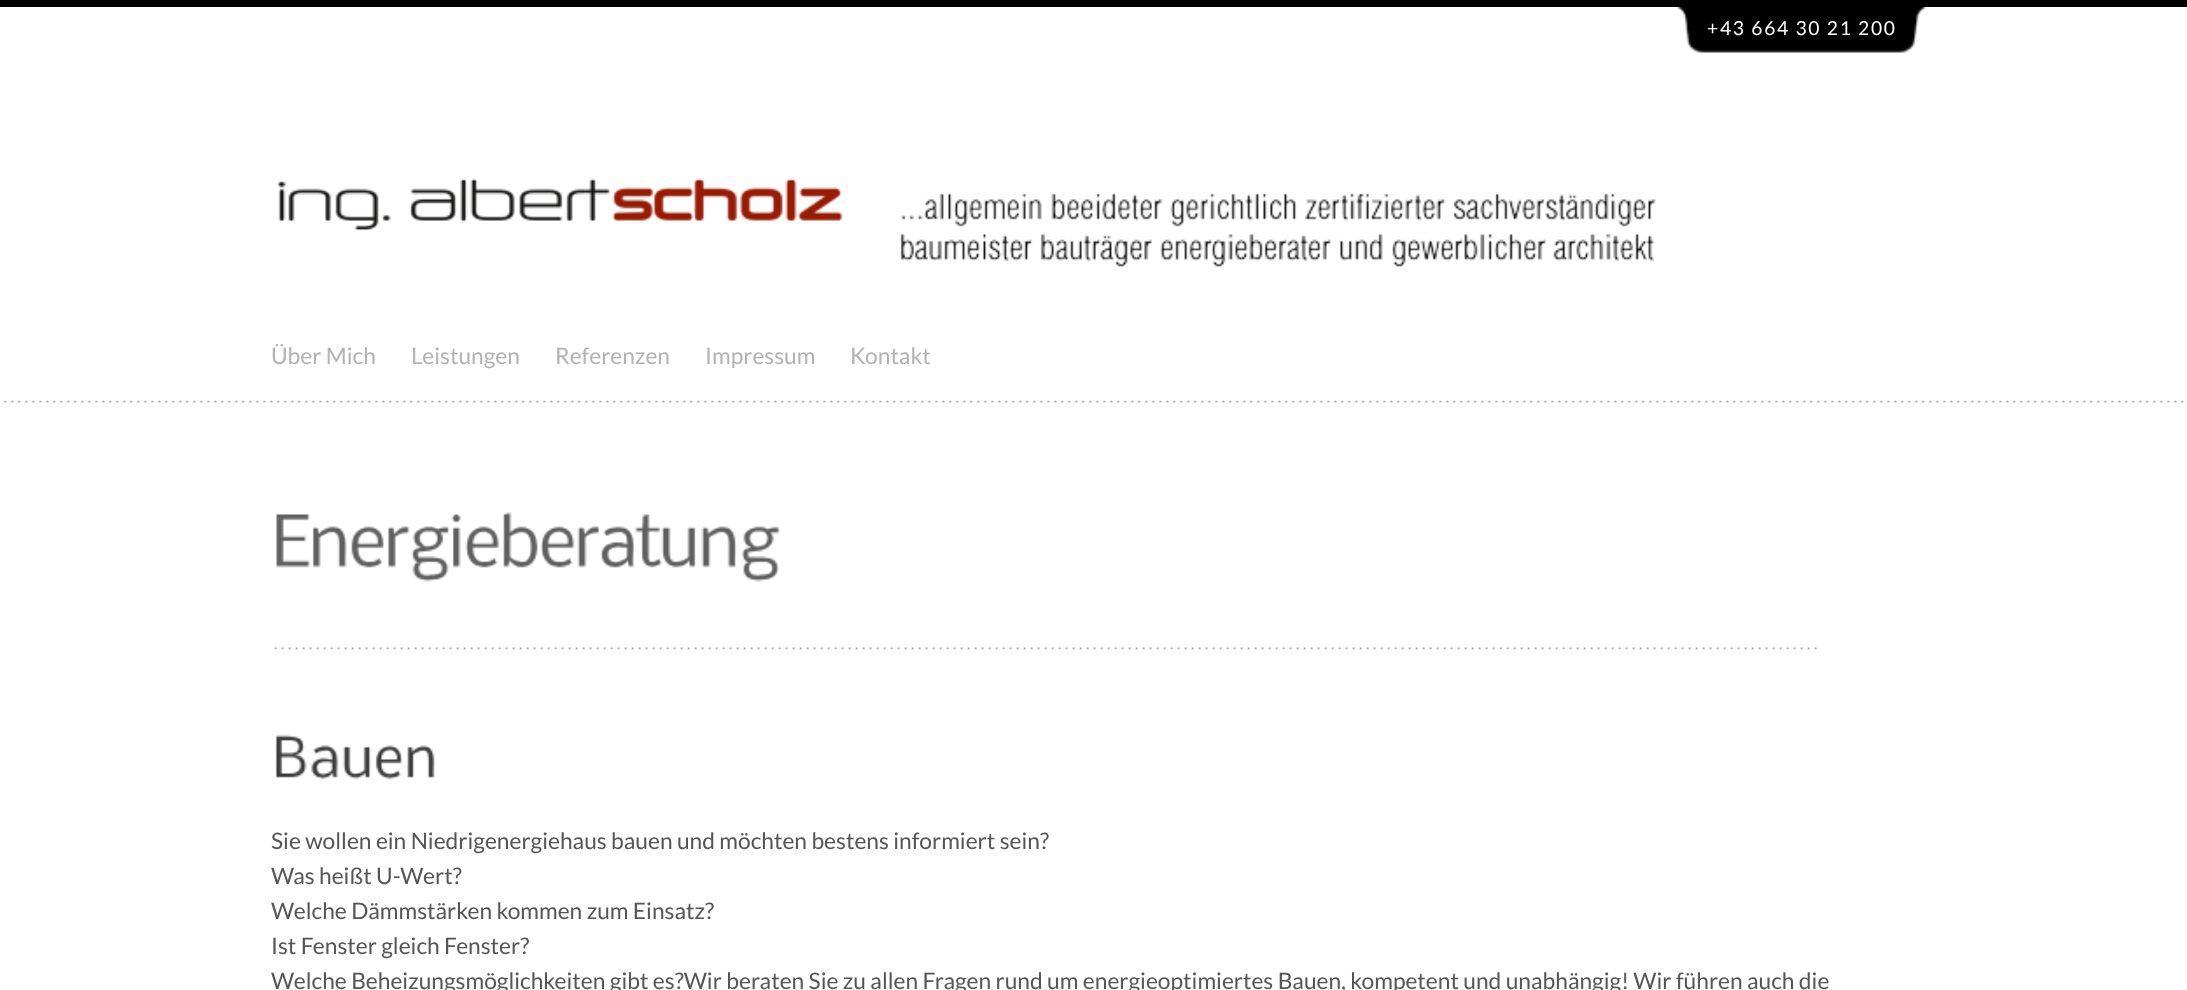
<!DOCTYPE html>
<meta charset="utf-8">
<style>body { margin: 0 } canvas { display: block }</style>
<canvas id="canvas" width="2187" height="990"></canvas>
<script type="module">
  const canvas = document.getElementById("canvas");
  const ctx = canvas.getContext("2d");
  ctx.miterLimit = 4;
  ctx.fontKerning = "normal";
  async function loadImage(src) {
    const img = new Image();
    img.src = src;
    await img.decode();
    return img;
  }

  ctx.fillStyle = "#ffffff";
  ctx.fillRect(0, 0, 2187, 990);
  ctx.drawImage(await loadImage("img1.png"), 4, 400, 2180, 3);
  ctx.fillStyle = "#000000";
  ctx.fillRect(0, 0, 2187, 7);
  ctx.drawImage(await loadImage("img2.png"), 1676, 7, 251, 46);
  ctx.letterSpacing = "1.75px";
  ctx.font = "19.25px Lato";
  ctx.fillStyle = "#ffffff";
  ctx.fillText("+43 664 30 21 200", 1707, 35);
  ctx.drawImage(await loadImage("img3.png"), 277, 178, 566, 53);
  ctx.drawImage(await loadImage("img4.png"), 900, 192, 756, 75);
  ctx.letterSpacing = "0px";
  ctx.font = "22.75px Lato";
  ctx.fillStyle = "#b2b2b2";
  ctx.fillText("Über Mich", 271, 364);
  ctx.fillText("Leistungen", 411, 364);
  ctx.fillText("Referenzen", 555, 364);
  ctx.fillText("Impressum", 705, 364);
  ctx.fillText("Kontakt", 850, 364);
  ctx.drawImage(await loadImage("img5.png"), 274, 647, 1543, 3);
  ctx.drawImage(await loadImage("img6.png"), 276, 512, 504, 70);
  ctx.drawImage(await loadImage("img7.png"), 275, 734, 160, 46);
  ctx.fillStyle = "#555555";
  ctx.fillText("Sie wollen ein Niedrigenergiehaus bauen und möchten bestens informiert sein?", 271, 849);
  ctx.fillText("Was heißt U-Wert?", 271, 884);
  ctx.fillText("Welche Dämmstärken kommen zum Einsatz?", 271, 919);
  ctx.fillText("Ist Fenster gleich Fenster?", 271, 954);
  ctx.fillText("Welche Beheizungsmöglichkeiten gibt es?Wir beraten Sie zu allen Fragen rund um energieoptimiertes Bauen, kompetent und unabhängig! Wir führen auch die", 271, 989);
</script>
